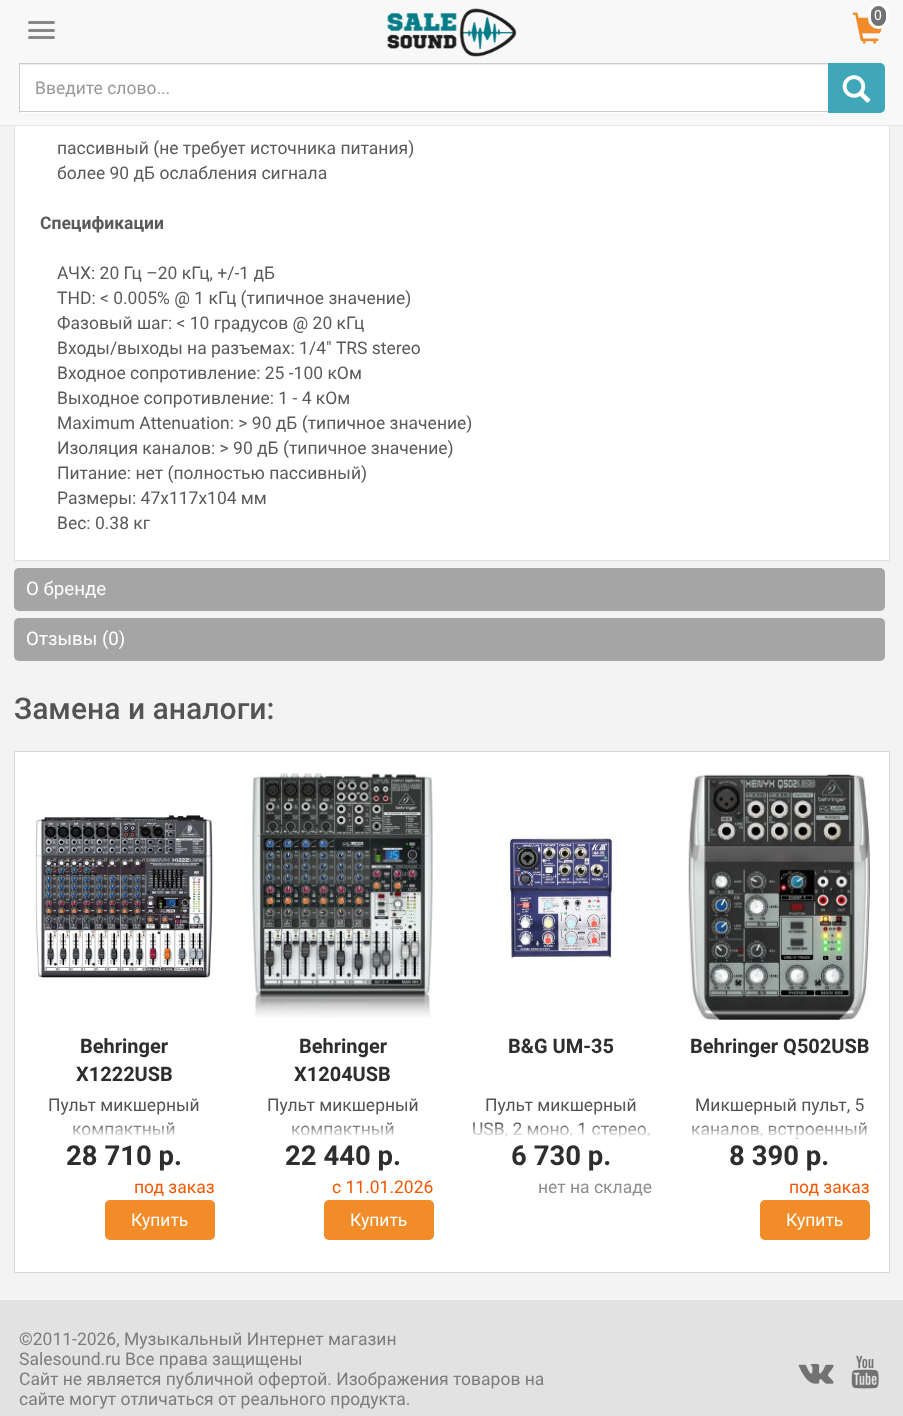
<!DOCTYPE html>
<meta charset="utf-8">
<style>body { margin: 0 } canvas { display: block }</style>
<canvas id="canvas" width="903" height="1416"></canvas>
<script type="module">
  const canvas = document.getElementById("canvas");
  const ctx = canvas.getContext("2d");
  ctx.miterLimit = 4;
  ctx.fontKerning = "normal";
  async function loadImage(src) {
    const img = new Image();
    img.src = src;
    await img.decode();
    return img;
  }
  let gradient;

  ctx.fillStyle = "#f3f3f3";
  ctx.fillRect(0, 0, 903, 1416);
  ctx.fillStyle = "#ffffff";
  ctx.fillRect(15, 126, 874, 434);
  ctx.strokeStyle = "#e1e1e1";
  ctx.strokeRect(14.5, -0.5, 875, 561);
  ctx.fillStyle = "#f8f8f8";
  ctx.fillRect(0, 0, 903, 125);
  ctx.fillStyle = "#e7e7e7";
  ctx.fillRect(0, 125, 903, 1);
  ctx.drawImage(await loadImage("img1.png"), 387, 8, 130, 49);
  ctx.drawImage(await loadImage("img2.png"), 852, 12, 30, 32);
  ctx.fillStyle = "#727272";
  ctx.beginPath();
  ctx.roundRect(869.5, 4.5, 18, 23, 9);
  ctx.fill();
  ctx.strokeStyle = "#ffffff";
  ctx.lineWidth = 3;
  ctx.stroke();
  ctx.font = "14px Roboto";
  ctx.fillStyle = "#ffffff";
  ctx.fillText("0", 874, 20);
  ctx.fillStyle = "#888888";
  ctx.beginPath();
  ctx.roundRect(28, 21, 27, 3, 1.5);
  ctx.fill();
  ctx.beginPath();
  ctx.roundRect(28, 29, 27, 3, 1.5);
  ctx.fill();
  ctx.beginPath();
  ctx.roundRect(28, 36, 27, 3, 1.5);
  ctx.fill();
  ctx.fillStyle = "#ffffff";
  ctx.fillRect(20, 65, 808, 48);
  ctx.fillStyle = "#ececec";
  ctx.fillRect(20, 64, 809, 1);
  ctx.fillStyle = "#cccccc";
  ctx.fillRect(19, 63, 810, 1);
  ctx.fillRect(19, 111, 810, 1);
  ctx.fillRect(19, 63, 1, 50);
  ctx.font = "17.5px Roboto";
  ctx.fillStyle = "#999999";
  ctx.fillText("Введите слово...", 35, 94);
  ctx.fillStyle = "#40a6b9";
  ctx.beginPath();
  ctx.roundRect(828, 63, 57, 50, [0, 5, 5, 0]);
  ctx.fill();
  ctx.drawImage(await loadImage("img3.png"), 842, 75, 29, 28);
  ctx.fillStyle = "#5a5a5a";
  ctx.fillText("пассивный (не требует источника питания)", 57, 154);
  ctx.fillText("более 90 дБ ослабления сигнала", 57, 179);
  ctx.font = "bold 17.5px Roboto";
  ctx.fillText("Спецификации", 40, 229);
  ctx.font = "17.5px Roboto";
  ctx.fillText("АЧХ: 20 Гц –20 кГц, +/-1 дБ", 57, 279);
  ctx.fillText("THD: < 0.005% @ 1 кГц (типичное значение)", 57, 304);
  ctx.fillText("Фазовый шаг: < 10 градусов @ 20 кГц", 57, 329);
  ctx.fillText("Входы/выходы на разъемах: 1/4\" TRS stereo", 57, 354);
  ctx.fillText("Входное сопротивление: 25 -100 кОм", 57, 379);
  ctx.fillText("Выходное сопротивление: 1 - 4 кОм", 57, 404);
  ctx.fillText("Maximum Attenuation: > 90 дБ (типичное значение)", 57, 429);
  ctx.fillText("Изоляция каналов: > 90 дБ (типичное значение)", 57, 454);
  ctx.fillText("Питание: нет (полностью пассивный)", 57, 479);
  ctx.fillText("Размеры: 47x117x104 мм", 57, 504);
  ctx.fillText("Вес: 0.38 кг", 57, 529);
  ctx.fillStyle = "#a5a5a5";
  ctx.beginPath();
  ctx.roundRect(14, 568, 871, 43, 5);
  ctx.fill();
  ctx.font = "18.75px Roboto";
  ctx.fillStyle = "#ffffff";
  ctx.fillText("О бренде", 26, 595);
  ctx.fillStyle = "#a5a5a5";
  ctx.beginPath();
  ctx.roundRect(14, 618, 871, 43, 5);
  ctx.fill();
  ctx.fillStyle = "#ffffff";
  ctx.fillText("Отзывы (0)", 26, 645);
  ctx.font = "500 30px Roboto";
  ctx.fillStyle = "#545454";
  ctx.fillText("Замена и аналоги:", 14, 719);
  ctx.fillStyle = "#ffffff";
  ctx.beginPath();
  ctx.rect(14.5, 751.5, 875, 521);
  ctx.fill();
  ctx.strokeStyle = "#d6d6d6";
  ctx.lineWidth = 1;
  ctx.stroke();
  ctx.drawImage(await loadImage("img4.png"), 34, 815, 179, 165);
  ctx.font = "bold 20px Roboto";
  ctx.fillStyle = "#2f2e2d";
  ctx.fillText("Behringer", 80, 1053);
  ctx.fillText("X1222USB", 76, 1081);
  ctx.font = "17.5px Roboto";
  ctx.fillStyle = "#545454";
  ctx.fillText("Пульт микшерный", 48, 1111);
  ctx.fillText("компактный", 72, 1135);
  gradient = ctx.createLinearGradient(124, 1123, 124, 1138);
  gradient.addColorStop(0, "rgba(255, 255, 255, 0)");
  gradient.addColorStop(1, "#ffffff");
  ctx.fillStyle = gradient;
  ctx.fillRect(73, 1123, 102, 13);
  ctx.font = "bold 27.5px Roboto";
  ctx.fillStyle = "#2f2e2d";
  ctx.fillText("28 710 р.", 66, 1165);
  ctx.font = "17.5px Roboto";
  ctx.fillStyle = "#f65600";
  ctx.fillText("под заказ", 134, 1193);
  ctx.fillStyle = "#f18c29";
  ctx.beginPath();
  ctx.roundRect(105, 1200, 110, 40, 5);
  ctx.fill();
  ctx.fillStyle = "#ffffff";
  ctx.fillText("Купить", 131, 1226);
  ctx.drawImage(await loadImage("img5.png"), 252, 773, 181, 245);
  ctx.font = "bold 20px Roboto";
  ctx.fillStyle = "#2f2e2d";
  ctx.fillText("Behringer", 299, 1053);
  ctx.fillText("X1204USB", 294, 1081);
  ctx.font = "17.5px Roboto";
  ctx.fillStyle = "#545454";
  ctx.fillText("Пульт микшерный", 267, 1111);
  ctx.fillText("компактный", 291, 1135);
  gradient = ctx.createLinearGradient(343, 1123, 343, 1138);
  gradient.addColorStop(0, "rgba(255, 255, 255, 0)");
  gradient.addColorStop(1, "#ffffff");
  ctx.fillStyle = gradient;
  ctx.fillRect(292, 1123, 102, 13);
  ctx.font = "bold 27.5px Roboto";
  ctx.fillStyle = "#2f2e2d";
  ctx.fillText("22 440 р.", 285, 1165);
  ctx.font = "17.5px Roboto";
  ctx.fillStyle = "#f65600";
  ctx.fillText("с 11.01.2026", 332, 1193);
  ctx.fillStyle = "#f18c29";
  ctx.beginPath();
  ctx.roundRect(324, 1200, 110, 40, 5);
  ctx.fill();
  ctx.fillStyle = "#ffffff";
  ctx.fillText("Купить", 350, 1226);
  ctx.drawImage(await loadImage("img6.png"), 504, 833, 114, 128);
  ctx.font = "bold 20px Roboto";
  ctx.fillStyle = "#2f2e2d";
  ctx.fillText("B&G UM-35", 508, 1053);
  ctx.font = "17.5px Roboto";
  ctx.fillStyle = "#545454";
  ctx.fillText("Пульт микшерный", 485, 1111);
  ctx.save();
  ctx.beginPath();
  ctx.rect(471, 1094, 180, 44);
  ctx.clip();
  ctx.fillText("USB, 2 моно, 1 стерео,", 472, 1135);
  ctx.restore();
  gradient = ctx.createLinearGradient(561, 1123, 561, 1138);
  gradient.addColorStop(0, "rgba(255, 255, 255, 0)");
  gradient.addColorStop(1, "#ffffff");
  ctx.fillStyle = gradient;
  ctx.fillRect(473, 1123, 177, 15);
  ctx.font = "bold 27.5px Roboto";
  ctx.fillStyle = "#2f2e2d";
  ctx.fillText("6 730 р.", 511, 1165);
  ctx.font = "17.5px Roboto";
  ctx.fillStyle = "#8d8d8d";
  ctx.fillText("нет на складе", 538, 1193);
  ctx.drawImage(await loadImage("img7.png"), 688, 774, 182, 246);
  ctx.font = "bold 20px Roboto";
  ctx.fillStyle = "#2f2e2d";
  ctx.fillText("Behringer Q502USB", 690, 1053);
  ctx.font = "17.5px Roboto";
  ctx.fillStyle = "#545454";
  ctx.fillText("Микшерный пульт, 5", 695, 1111);
  ctx.fillText("каналов, встроенный", 691, 1135);
  gradient = ctx.createLinearGradient(779, 1123, 779, 1138);
  gradient.addColorStop(0, "rgba(255, 255, 255, 0)");
  gradient.addColorStop(1, "#ffffff");
  ctx.fillStyle = gradient;
  ctx.fillRect(692, 1123, 175, 15);
  ctx.font = "bold 27.5px Roboto";
  ctx.fillStyle = "#2f2e2d";
  ctx.fillText("8 390 р.", 729, 1165);
  ctx.font = "17.5px Roboto";
  ctx.fillStyle = "#f65600";
  ctx.fillText("под заказ", 789, 1193);
  ctx.fillStyle = "#f18c29";
  ctx.beginPath();
  ctx.roundRect(760, 1200, 110, 40, 5);
  ctx.fill();
  ctx.fillStyle = "#ffffff";
  ctx.fillText("Купить", 786, 1226);
  ctx.fillStyle = "#e2e2e2";
  ctx.fillRect(0, 1300, 903, 116);
  ctx.fillStyle = "#7c7c7c";
  ctx.fillText("©2011-2026, Музыкальный Интернет магазин", 19, 1345);
  ctx.fillText("Salesound.ru Все права защищены", 19, 1365);
  ctx.fillText("Сайт не является публичной офертой. Изображения товаров на", 19, 1385);
  ctx.fillText("сайте могут отличаться от реального продукта.", 19, 1405);
  ctx.drawImage(await loadImage("img8.png"), 798, 1363, 36, 21);
  ctx.drawImage(await loadImage("img9.png"), 851, 1355, 28, 34);
</script>
